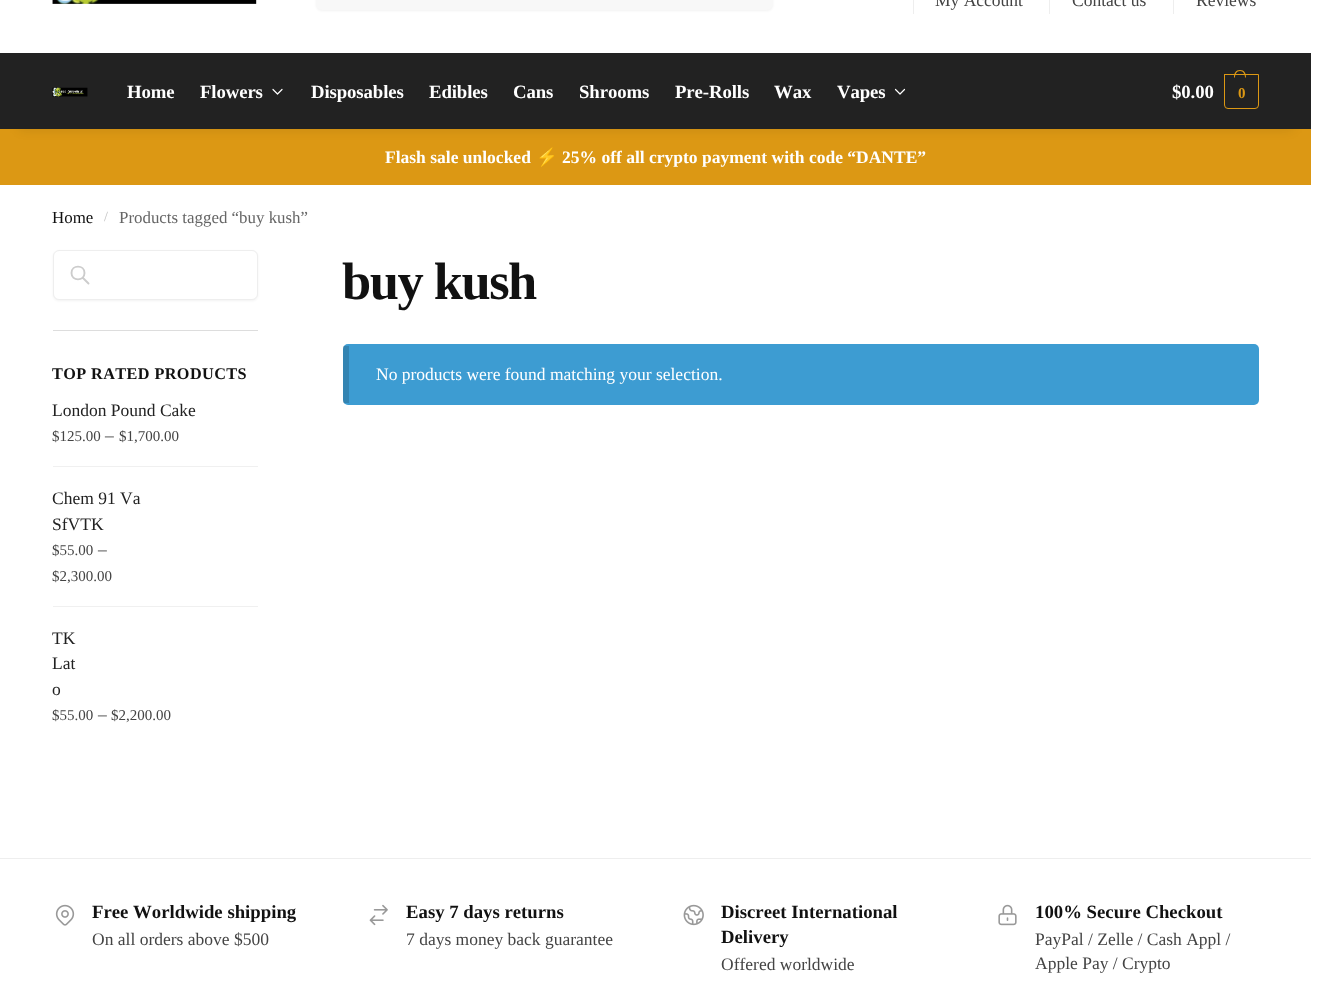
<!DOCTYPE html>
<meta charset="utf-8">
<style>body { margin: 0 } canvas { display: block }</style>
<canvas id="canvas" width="1330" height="990"></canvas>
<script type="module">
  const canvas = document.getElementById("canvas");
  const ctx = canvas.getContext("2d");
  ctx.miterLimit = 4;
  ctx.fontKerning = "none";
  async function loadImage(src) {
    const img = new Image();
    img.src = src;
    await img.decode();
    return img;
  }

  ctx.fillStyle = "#ffffff";
  ctx.fillRect(0, 0, 1330, 990);
  ctx.drawImage(await loadImage("img1.png"), 52, 0, 205, 4);
  ctx.fillStyle = "rgba(0, 0, 0, 0.05)";
  ctx.filter = "blur(1px)";
  ctx.beginPath();
  ctx.roundRect(316, -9, 457, 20, 6);
  ctx.fill();
  ctx.filter = "none";
  ctx.fillStyle = "#f8f8f8";
  ctx.beginPath();
  ctx.roundRect(316, -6, 457, 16, 6);
  ctx.fill();
  ctx.fillStyle = "#eeeeee";
  ctx.fillRect(913, 0, 1, 14);
  ctx.font = "17.5px Liberation Serif";
  ctx.fillStyle = "#444444";
  ctx.fillText("My Account", 935, 6);
  ctx.fillStyle = "#eeeeee";
  ctx.fillRect(1049, 0, 1, 14);
  ctx.fillStyle = "#444444";
  ctx.fillText("Contact us", 1072, 6);
  ctx.fillStyle = "#eeeeee";
  ctx.fillRect(1173, 0, 1, 14);
  ctx.fillStyle = "#444444";
  ctx.fillText("Reviews", 1196, 6);
  ctx.fillStyle = "#dc9814";
  ctx.fillRect(0, 129, 1311, 56);
  ctx.fillStyle = "rgba(0, 0, 0, 0.1)";
  ctx.filter = "blur(6px)";
  ctx.beginPath();
  ctx.rect(19, 90, 1274, 39);
  ctx.fill();
  ctx.filter = "none";
  ctx.fillStyle = "#222222";
  ctx.fillRect(0, 53, 1311, 76);
  ctx.drawImage(await loadImage("img2.png"), 52, 87, 36, 10);
  ctx.letterSpacing = "-0.1px";
  ctx.font = "bold 18.75px Liberation Serif";
  ctx.fillStyle = "#ffffff";
  ctx.fillText("Home", 127, 98);
  ctx.fillText("Flowers", 200, 98);
  ctx.beginPath();
  ctx.moveTo(282, 89.5);
  ctx.lineTo(277.5, 94);
  ctx.lineTo(273, 89.5);
  ctx.strokeStyle = "#ffffff";
  ctx.lineWidth = 1.2;
  ctx.lineCap = "round";
  ctx.lineJoin = "round";
  ctx.stroke();
  ctx.fillText("Disposables", 311, 98);
  ctx.fillText("Edibles", 429, 98);
  ctx.fillText("Cans", 513, 98);
  ctx.fillText("Shrooms", 579, 98);
  ctx.fillText("Pre-Rolls", 675, 98);
  ctx.fillText("Wax", 774, 98);
  ctx.fillText("Vapes", 837, 98);
  ctx.beginPath();
  ctx.moveTo(904.5, 89.5);
  ctx.lineTo(900, 94);
  ctx.lineTo(895.5, 89.5);
  ctx.stroke();
  ctx.fillText("$0.00", 1172, 98);
  ctx.beginPath();
  ctx.roundRect(1224.5, 74.5, 34, 34, [0, 0, 3.5, 3.5]);
  ctx.strokeStyle = "#dc9814";
  ctx.lineWidth = 1;
  ctx.lineJoin = "miter";
  ctx.stroke();
  ctx.fillStyle = "#dc9814";
  ctx.beginPath();
  ctx.moveTo(1240, 70);
  ctx.bezierCurveTo(1244.5, 70, 1246, 73.5, 1246, 77.5);
  ctx.lineTo(1234, 77.5);
  ctx.bezierCurveTo(1234, 73.5, 1235.5, 70, 1240, 70);
  ctx.closePath();
  ctx.moveTo(1240, 71);
  ctx.bezierCurveTo(1243.5, 71, 1245, 74.5, 1245, 77.5);
  ctx.lineTo(1235, 77.5);
  ctx.bezierCurveTo(1235, 74.5, 1236.5, 71, 1240, 71);
  ctx.closePath();
  ctx.fill("evenodd");
  ctx.letterSpacing = "-1px";
  ctx.font = "bold 15px Liberation Serif";
  ctx.fillText("0", 1238, 98);
  ctx.letterSpacing = "0px";
  ctx.font = "bold 17.5px Liberation Serif";
  ctx.fillStyle = "#ffffff";
  ctx.fillText("Flash sale unlocked", 385, 163);
  ctx.font = "bold 17.5px Noto Color Emoji";
  ctx.fillText("⚡", 536, 163);
  ctx.font = "bold 17.5px Liberation Serif";
  ctx.fillText("25% off all crypto payment with code “DANTE”", 562, 163);
  ctx.font = "16.9px Liberation Serif";
  ctx.fillStyle = "#111111";
  ctx.fillText("Home", 52, 223);
  ctx.font = "14px Liberation Serif";
  ctx.fillStyle = "#c2c2c2";
  ctx.fillText("/", 104, 221);
  ctx.font = "16.9px Liberation Serif";
  ctx.fillStyle = "#666666";
  ctx.fillText("Products tagged “buy kush”", 119, 223);
  ctx.letterSpacing = "-1.5px";
  ctx.font = "bold 52.5px Liberation Serif";
  ctx.fillStyle = "#111111";
  ctx.fillText("buy kush", 342, 299);
  ctx.fillStyle = "#3d9cd2";
  ctx.beginPath();
  ctx.roundRect(343, 344, 916, 61, 5);
  ctx.fill();
  ctx.fillStyle = "rgba(0, 0, 0, 0.15)";
  ctx.fillRect(343, 346, 6, 57);
  ctx.letterSpacing = "0px";
  ctx.font = "17.5px Liberation Serif";
  ctx.fillStyle = "#ffffff";
  ctx.fillText("No products were found matching your selection.", 376, 380);
  ctx.fillStyle = "#dddddd";
  ctx.fillRect(53, 330, 205, 1);
  ctx.fillStyle = "rgba(0, 0, 0, 0.05)";
  ctx.filter = "blur(1px)";
  ctx.beginPath();
  ctx.roundRect(53, 251, 205, 50, 6);
  ctx.fill();
  ctx.filter = "none";
  ctx.fillStyle = "#ffffff";
  ctx.beginPath();
  ctx.roundRect(53.5, 250.5, 204, 49, 5.5);
  ctx.fill();
  ctx.strokeStyle = "#eeeeee";
  ctx.stroke();
  ctx.beginPath();
  ctx.moveTo(88.5, 283.5);
  ctx.lineTo(83, 278);
  ctx.moveTo(84.5, 273);
  ctx.bezierCurveTo(84.5, 281.5, 71.5, 281.5, 71.5, 273);
  ctx.bezierCurveTo(71.5, 264.5, 84.5, 264.5, 84.5, 273);
  ctx.closePath();
  ctx.strokeStyle = "#cccccc";
  ctx.lineWidth = 1.9;
  ctx.lineJoin = "round";
  ctx.stroke();
  ctx.letterSpacing = "0.4px";
  ctx.font = "bold 16.25px Liberation Serif";
  ctx.fillStyle = "#111111";
  ctx.fillText("TOP RATED PRODUCTS", 52, 379);
  ctx.fillStyle = "#f0f0f0";
  ctx.fillRect(53, 466, 205, 1);
  ctx.letterSpacing = "0px";
  ctx.font = "17.5px Liberation Serif";
  ctx.fillStyle = "#222222";
  ctx.fillText("London Pound Cake", 52, 416);
  ctx.font = "15px Liberation Serif";
  ctx.fillStyle = "#444444";
  ctx.fillText("$125.00", 52, 441);
  ctx.font = "17.5px Liberation Serif";
  ctx.fillText("–", 105, 441);
  ctx.font = "15px Liberation Serif";
  ctx.fillText("$1,700.00", 119, 441);
  ctx.fillStyle = "#f0f0f0";
  ctx.fillRect(53, 606, 205, 1);
  ctx.font = "17.5px Liberation Serif";
  ctx.fillStyle = "#222222";
  ctx.fillText("Chem 91 Va", 52, 504);
  ctx.fillText("SfVTK", 52, 530);
  ctx.font = "15px Liberation Serif";
  ctx.fillStyle = "#444444";
  ctx.fillText("$55.00", 52, 555);
  ctx.font = "17.5px Liberation Serif";
  ctx.fillText("–", 98, 555);
  ctx.font = "15px Liberation Serif";
  ctx.fillText("$2,300.00", 52, 581);
  ctx.font = "17.5px Liberation Serif";
  ctx.fillStyle = "#222222";
  ctx.fillText("TK", 52, 644);
  ctx.fillText("Lat", 52, 669);
  ctx.fillText("o", 52, 695);
  ctx.font = "15px Liberation Serif";
  ctx.fillStyle = "#444444";
  ctx.fillText("$55.00", 52, 720);
  ctx.font = "17.5px Liberation Serif";
  ctx.fillText("–", 98, 720);
  ctx.font = "15px Liberation Serif";
  ctx.fillText("$2,200.00", 111, 720);
  ctx.fillStyle = "#eeeeee";
  ctx.fillRect(0, 858, 1311, 1);
  ctx.font = "bold 18.75px Liberation Serif";
  ctx.fillStyle = "#111111";
  ctx.fillText("Free Worldwide shipping", 92, 918);
  ctx.drawImage(await loadImage("img3.png"), 55, 904, 20, 22);
  ctx.font = "17.5px Liberation Serif";
  ctx.fillStyle = "#444444";
  ctx.fillText("On all orders above $500", 92, 945);
  ctx.font = "bold 18.75px Liberation Serif";
  ctx.fillStyle = "#111111";
  ctx.fillText("Easy 7 days returns", 406, 918);
  ctx.drawImage(await loadImage("img4.png"), 369, 904, 19, 22);
  ctx.font = "17.5px Liberation Serif";
  ctx.fillStyle = "#444444";
  ctx.fillText("7 days money back guarantee", 406, 945);
  ctx.font = "bold 18.75px Liberation Serif";
  ctx.fillStyle = "#111111";
  ctx.fillText("Discreet International", 721, 918);
  ctx.fillText("Delivery", 721, 943);
  ctx.drawImage(await loadImage("img5.png"), 683, 904, 21, 22);
  ctx.font = "17.5px Liberation Serif";
  ctx.fillStyle = "#444444";
  ctx.fillText("Offered worldwide", 721, 970);
  ctx.font = "bold 18.75px Liberation Serif";
  ctx.fillStyle = "#111111";
  ctx.fillText("100% Secure Checkout", 1035, 918);
  ctx.drawImage(await loadImage("img6.png"), 998, 904, 19, 22);
  ctx.font = "17.5px Liberation Serif";
  ctx.fillStyle = "#444444";
  ctx.fillText("PayPal / Zelle / Cash Appl /", 1035, 945);
  ctx.fillText("Apple Pay / Crypto", 1035, 969);
</script>
